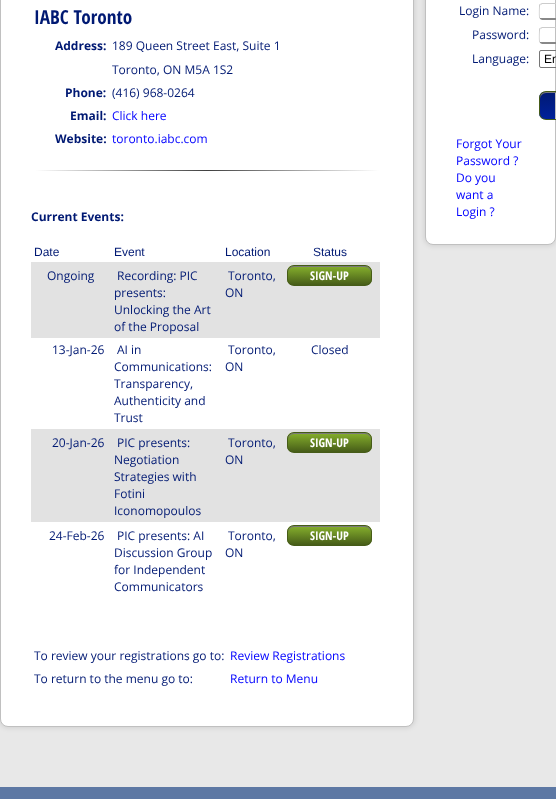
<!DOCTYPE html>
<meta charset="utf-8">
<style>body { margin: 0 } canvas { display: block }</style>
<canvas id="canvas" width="556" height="799"></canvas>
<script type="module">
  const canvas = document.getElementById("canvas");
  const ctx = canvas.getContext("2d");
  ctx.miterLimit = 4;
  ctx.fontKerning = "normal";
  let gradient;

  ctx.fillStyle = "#5d78a4";
  ctx.fillRect(0, 0, 556, 799);
  ctx.fillStyle = "#e8e8e8";
  ctx.fillRect(0, 0, 556, 787);
  ctx.fillStyle = "rgba(0, 0, 0, 0.1)";
  ctx.filter = "blur(2.5px)";
  ctx.beginPath();
  ctx.roundRect(-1, -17, 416, 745, 9);
  ctx.fill();
  ctx.filter = "none";
  ctx.fillStyle = "#ffffff";
  ctx.beginPath();
  ctx.roundRect(0.5, -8.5, 413, 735, 7.5);
  ctx.fill();
  ctx.strokeStyle = "#c0c0c0";
  ctx.stroke();
  ctx.font = "bold 19.25px Open Sans Condensed";
  ctx.fillStyle = "#001973";
  ctx.fillText("IABC Toronto", 34, 24);
  ctx.font = "bold 12px Open Sans";
  ctx.fillText("Address:", 55, 50);
  ctx.font = "12px Open Sans";
  ctx.fillText("189 Queen Street East, Suite 1", 112, 50);
  ctx.fillText("Toronto, ON M5A 1S2", 112, 74);
  ctx.font = "bold 12px Open Sans";
  ctx.fillText("Phone:", 65, 97);
  ctx.font = "12px Open Sans";
  ctx.fillText("(416) 968-0264", 112, 97);
  ctx.font = "bold 12px Open Sans";
  ctx.fillText("Email:", 70, 120);
  ctx.font = "12px Open Sans";
  ctx.fillStyle = "#0000ff";
  ctx.fillText("Click here", 112, 120);
  ctx.font = "bold 12px Open Sans";
  ctx.fillStyle = "#001973";
  ctx.fillText("Website:", 55, 143);
  ctx.font = "12px Open Sans";
  ctx.fillStyle = "#0000ff";
  ctx.fillText("toronto.iabc.com", 112, 143);
  gradient = ctx.createLinearGradient(35, 171, 379, 171);
  gradient.addColorStop(0, "#ffffff");
  gradient.addColorStop(0.5, "#404040");
  gradient.addColorStop(1, "#ffffff");
  ctx.fillStyle = gradient;
  ctx.fillRect(35, 170, 344, 1);
  ctx.font = "bold 12px Open Sans";
  ctx.fillStyle = "#001973";
  ctx.fillText("Current Events:", 31, 221);
  ctx.font = "12px Liberation Sans";
  ctx.fillText("Date", 34, 256);
  ctx.fillText("Event", 114, 256);
  ctx.fillText("Location", 225, 256);
  ctx.fillText("Status", 313, 256);
  ctx.fillStyle = "#e2e2e2";
  ctx.fillRect(31, 262, 349, 76);
  ctx.font = "12px Open Sans";
  ctx.fillStyle = "#001973";
  ctx.fillText("Ongoing", 47, 280);
  ctx.fillText("Recording: PIC", 117, 280);
  ctx.fillText("presents:", 114, 297);
  ctx.fillText("Unlocking the Art", 114, 314);
  ctx.fillText("of the Proposal", 114, 331);
  ctx.fillText("Toronto,", 228, 280);
  ctx.fillText("ON", 225, 297);
  ctx.save();
  ctx.beginPath();
  ctx.roundRect(287, 265, 85, 21, 7);
  ctx.clip();
  gradient = ctx.createLinearGradient(330, 266, 330, 285);
  gradient.addColorStop(0, "#86b02d");
  gradient.addColorStop(1, "#465c18");
  ctx.fillStyle = gradient;
  ctx.fillRect(287, 266, 85, 19);
  ctx.restore();
  ctx.fillStyle = "#7a7a7a";
  ctx.beginPath();
  ctx.moveTo(294, 267);
  ctx.lineTo(365, 267);
  ctx.bezierCurveTo(368, 267, 371, 270, 371, 273);
  ctx.bezierCurveTo(371, 263, 360, 266, 353, 266);
  ctx.lineTo(306, 266);
  ctx.bezierCurveTo(299, 266, 288, 263, 288, 273);
  ctx.bezierCurveTo(288, 270, 291, 267, 294, 267);
  ctx.closePath();
  ctx.fill();
  ctx.beginPath();
  ctx.roundRect(287.5, 265.5, 84, 20, 6.5);
  ctx.strokeStyle = "#465c18";
  ctx.stroke();
  ctx.font = "bold 12px Open Sans Condensed";
  ctx.fillStyle = "#ffffff";
  ctx.fillText("SIGN-UP", 310, 280);
  ctx.font = "12px Open Sans";
  ctx.fillStyle = "#001973";
  ctx.fillText("13-Jan-26", 52, 354);
  ctx.fillText("AI in", 117, 354);
  ctx.fillText("Communications:", 114, 371);
  ctx.fillText("Transparency,", 114, 388);
  ctx.fillText("Authenticity and", 114, 405);
  ctx.fillText("Trust", 114, 422);
  ctx.fillText("Toronto,", 228, 354);
  ctx.fillText("ON", 225, 371);
  ctx.fillText("Closed", 311, 354);
  ctx.fillStyle = "#e2e2e2";
  ctx.fillRect(31, 429, 349, 93);
  ctx.fillStyle = "#001973";
  ctx.fillText("20-Jan-26", 52, 447);
  ctx.fillText("PIC presents:", 117, 447);
  ctx.fillText("Negotiation", 114, 464);
  ctx.fillText("Strategies with", 114, 481);
  ctx.fillText("Fotini", 114, 498);
  ctx.fillText("Iconomopoulos", 114, 515);
  ctx.fillText("Toronto,", 228, 447);
  ctx.fillText("ON", 225, 464);
  ctx.save();
  ctx.beginPath();
  ctx.roundRect(287, 432, 85, 21, 7);
  ctx.clip();
  gradient = ctx.createLinearGradient(330, 433, 330, 452);
  gradient.addColorStop(0, "#86b02d");
  gradient.addColorStop(1, "#465c18");
  ctx.fillStyle = gradient;
  ctx.fillRect(287, 433, 85, 19);
  ctx.restore();
  ctx.fillStyle = "#7a7a7a";
  ctx.beginPath();
  ctx.moveTo(294, 434);
  ctx.lineTo(365, 434);
  ctx.bezierCurveTo(368, 434, 371, 437, 371, 440);
  ctx.bezierCurveTo(371, 430, 360, 433, 353, 433);
  ctx.lineTo(306, 433);
  ctx.bezierCurveTo(299, 433, 288, 430, 288, 440);
  ctx.bezierCurveTo(288, 437, 291, 434, 294, 434);
  ctx.closePath();
  ctx.fill();
  ctx.beginPath();
  ctx.roundRect(287.5, 432.5, 84, 20, 6.5);
  ctx.stroke();
  ctx.font = "bold 12px Open Sans Condensed";
  ctx.fillStyle = "#ffffff";
  ctx.fillText("SIGN-UP", 310, 447);
  ctx.font = "12px Open Sans";
  ctx.fillStyle = "#001973";
  ctx.fillText("24-Feb-26", 49, 540);
  ctx.fillText("PIC presents: AI", 117, 540);
  ctx.fillText("Discussion Group", 114, 557);
  ctx.fillText("for Independent", 114, 574);
  ctx.fillText("Communicators", 114, 591);
  ctx.fillText("Toronto,", 228, 540);
  ctx.fillText("ON", 225, 557);
  ctx.save();
  ctx.beginPath();
  ctx.roundRect(287, 525, 85, 21, 7);
  ctx.clip();
  gradient = ctx.createLinearGradient(330, 526, 330, 545);
  gradient.addColorStop(0, "#86b02d");
  gradient.addColorStop(1, "#465c18");
  ctx.fillStyle = gradient;
  ctx.fillRect(287, 526, 85, 19);
  ctx.restore();
  ctx.fillStyle = "#7a7a7a";
  ctx.beginPath();
  ctx.moveTo(294, 527);
  ctx.lineTo(365, 527);
  ctx.bezierCurveTo(368, 527, 371, 530, 371, 533);
  ctx.bezierCurveTo(371, 523, 360, 526, 353, 526);
  ctx.lineTo(306, 526);
  ctx.bezierCurveTo(299, 526, 288, 523, 288, 533);
  ctx.bezierCurveTo(288, 530, 291, 527, 294, 527);
  ctx.closePath();
  ctx.fill();
  ctx.beginPath();
  ctx.roundRect(287.5, 525.5, 84, 20, 6.5);
  ctx.stroke();
  ctx.font = "bold 12px Open Sans Condensed";
  ctx.fillStyle = "#ffffff";
  ctx.fillText("SIGN-UP", 310, 540);
  ctx.font = "12px Open Sans";
  ctx.fillStyle = "#001973";
  ctx.fillText("To review your registrations go to:", 34, 660);
  ctx.fillStyle = "#0000ff";
  ctx.fillText("Review Registrations", 230, 660);
  ctx.fillStyle = "#001973";
  ctx.fillText("To return to the menu go to:", 34, 683);
  ctx.fillStyle = "#0000ff";
  ctx.fillText("Return to Menu", 230, 683);
  ctx.fillStyle = "rgba(0, 0, 0, 0.1)";
  ctx.filter = "blur(2.5px)";
  ctx.beginPath();
  ctx.roundRect(424, -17, 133, 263, 9);
  ctx.fill();
  ctx.filter = "none";
  ctx.fillStyle = "#ffffff";
  ctx.beginPath();
  ctx.roundRect(425.5, -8.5, 130, 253, 7.5);
  ctx.fill();
  ctx.strokeStyle = "#c0c0c0";
  ctx.stroke();
  ctx.fillStyle = "#001973";
  ctx.fillText("Login Name:", 459, 15);
  ctx.fillStyle = "#cccccc";
  ctx.beginPath();
  ctx.moveTo(542, 3);
  ctx.lineTo(540, 4);
  ctx.lineTo(541, 5);
  ctx.lineTo(542, 4);
  ctx.lineTo(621, 4);
  ctx.lineTo(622, 5);
  ctx.lineTo(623, 4);
  ctx.lineTo(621, 3);
  ctx.closePath();
  ctx.fill();
  ctx.fillStyle = "#888888";
  ctx.beginPath();
  ctx.moveTo(542, 20);
  ctx.lineTo(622, 20);
  ctx.lineTo(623, 19);
  ctx.lineTo(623, 18);
  ctx.lineTo(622, 18);
  ctx.lineTo(542, 18);
  ctx.lineTo(540, 18);
  ctx.lineTo(540, 19);
  ctx.closePath();
  ctx.fill();
  ctx.fillStyle = "#cccccc";
  ctx.beginPath();
  ctx.moveTo(539, 6);
  ctx.bezierCurveTo(539, 8.5, 538.5, 17.5, 539.5, 19);
  ctx.lineTo(540, 17.5);
  ctx.bezierCurveTo(539.5, 17, 539.5, 5.5, 540.5, 4.5);
  ctx.lineTo(540, 4);
  ctx.bezierCurveTo(539, 4, 539, 5, 539, 6);
  ctx.closePath();
  ctx.fill();
  ctx.fillStyle = "#001973";
  ctx.fillText("Password:", 472, 39);
  ctx.fillStyle = "#cccccc";
  ctx.beginPath();
  ctx.moveTo(542, 27);
  ctx.lineTo(540, 28);
  ctx.lineTo(541, 29);
  ctx.lineTo(542, 28);
  ctx.lineTo(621, 28);
  ctx.lineTo(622, 29);
  ctx.lineTo(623, 28);
  ctx.lineTo(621, 27);
  ctx.closePath();
  ctx.fill();
  ctx.fillStyle = "#888888";
  ctx.beginPath();
  ctx.moveTo(542, 44);
  ctx.lineTo(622, 44);
  ctx.lineTo(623, 43);
  ctx.lineTo(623, 42);
  ctx.lineTo(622, 42);
  ctx.lineTo(542, 42);
  ctx.lineTo(540, 42);
  ctx.lineTo(540, 43);
  ctx.closePath();
  ctx.fill();
  ctx.fillStyle = "#cccccc";
  ctx.beginPath();
  ctx.moveTo(539, 30);
  ctx.bezierCurveTo(539, 32.5, 538.5, 41.5, 539.5, 43);
  ctx.lineTo(540, 41.5);
  ctx.bezierCurveTo(539.5, 41, 539.5, 29.5, 540.5, 28.5);
  ctx.lineTo(540, 28);
  ctx.bezierCurveTo(539, 28, 539, 29, 539, 30);
  ctx.closePath();
  ctx.fill();
  ctx.fillStyle = "#001973";
  ctx.fillText("Language:", 472, 63);
  ctx.beginPath();
  ctx.roundRect(539.5, 50.5, 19, 17, 1.5);
  ctx.strokeStyle = "#767676";
  ctx.stroke();
  ctx.font = "12px Liberation Sans";
  ctx.fillStyle = "#000000";
  ctx.fillText("En", 544, 63);
  ctx.save();
  ctx.beginPath();
  ctx.roundRect(539, 91, 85, 29, 7);
  ctx.clip();
  gradient = ctx.createLinearGradient(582, 92, 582, 119);
  gradient.addColorStop(0, "#001973");
  gradient.addColorStop(1, "#00219b");
  ctx.fillStyle = gradient;
  ctx.fillRect(539, 92, 16, 27);
  ctx.restore();
  ctx.fillStyle = "#7a7a7a";
  ctx.beginPath();
  ctx.moveTo(546, 93);
  ctx.lineTo(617, 93);
  ctx.bezierCurveTo(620, 93, 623, 96, 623, 99);
  ctx.bezierCurveTo(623, 89, 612, 92, 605, 92);
  ctx.lineTo(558, 92);
  ctx.bezierCurveTo(551, 92, 540, 89, 540, 99);
  ctx.bezierCurveTo(540, 96, 543, 93, 546, 93);
  ctx.closePath();
  ctx.fill();
  ctx.beginPath();
  ctx.roundRect(539.5, 91.5, 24, 28, 6.5);
  ctx.strokeStyle = "#465c18";
  ctx.stroke();
  ctx.font = "12px Open Sans";
  ctx.fillStyle = "#0000ff";
  ctx.fillText("Forgot Your", 456, 148);
  ctx.fillText("Password ?", 456, 165);
  ctx.fillText("Do you", 456, 182);
  ctx.fillText("want a", 456, 199);
  ctx.fillText("Login ?", 456, 216);
</script>
